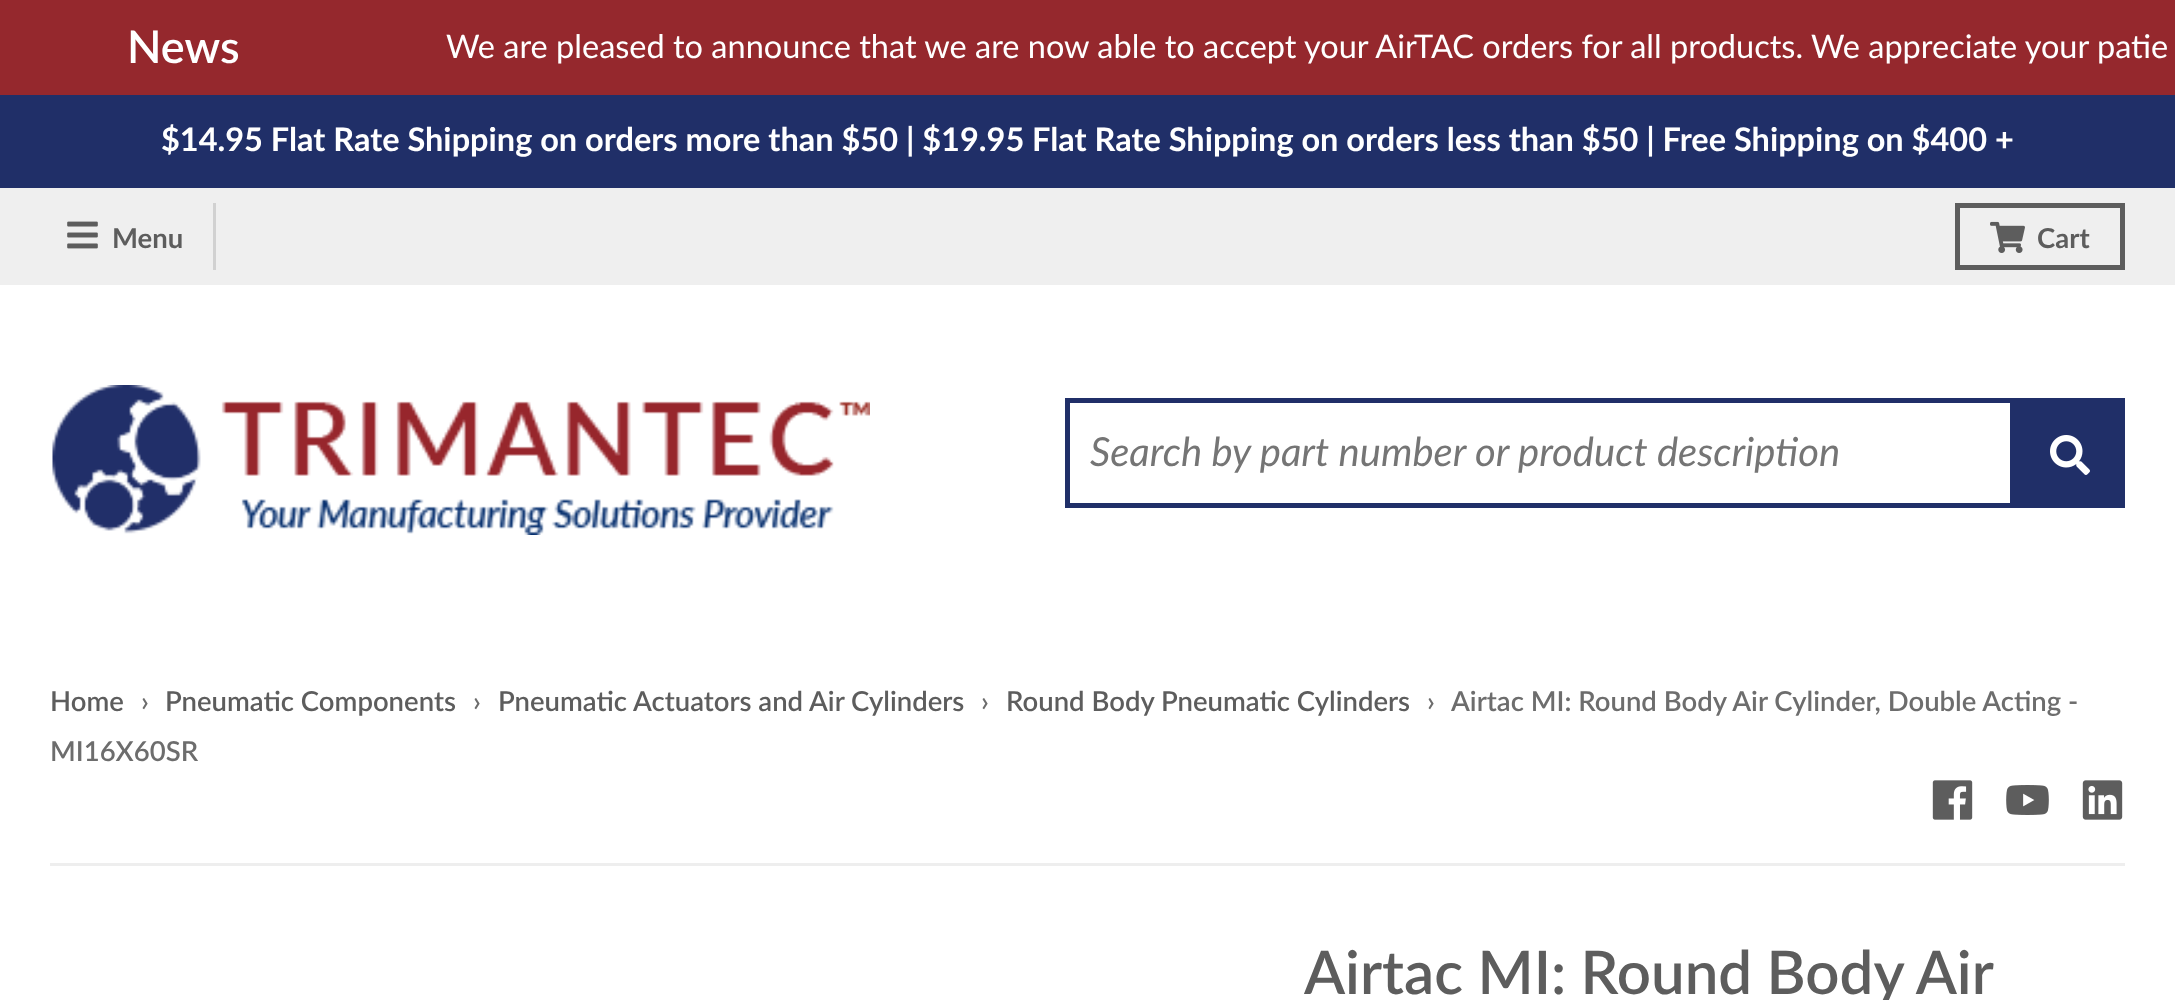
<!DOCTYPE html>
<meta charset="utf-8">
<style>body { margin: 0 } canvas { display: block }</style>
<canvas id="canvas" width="2175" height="1000"></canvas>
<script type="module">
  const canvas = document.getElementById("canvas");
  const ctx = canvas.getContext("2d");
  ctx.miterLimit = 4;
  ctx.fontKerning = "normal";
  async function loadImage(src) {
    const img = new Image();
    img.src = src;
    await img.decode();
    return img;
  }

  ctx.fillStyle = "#ffffff";
  ctx.fillRect(0, 0, 2175, 1000);
  ctx.fillStyle = "#95282d";
  ctx.fillRect(0, 0, 2175, 95);
  ctx.font = "600 45px Lato";
  ctx.fillStyle = "#ffffff";
  ctx.fillText("News", 127, 63);
  ctx.font = "32.5px Lato";
  ctx.fillText("We are pleased to announce that we are now able to accept your AirTAC orders for all products. We appreciate your patie", 446, 58);
  ctx.fillStyle = "#202f68";
  ctx.fillRect(0, 95, 2175, 93);
  ctx.font = "bold 32.5px Lato";
  ctx.fillStyle = "#ffffff";
  ctx.fillText("$14.95 Flat Rate Shipping on orders more than $50 | $19.95 Flat Rate Shipping on orders less than $50 | Free Shipping on $400 +", 161, 151);
  ctx.fillStyle = "#efefef";
  ctx.fillRect(0, 188, 2175, 97);
  ctx.fillStyle = "#d1d1d1";
  ctx.fillRect(213, 203, 3, 67);
  ctx.drawImage(await loadImage("img1.png"), 67, 221, 31, 28);
  ctx.font = "bold 27.5px Lato";
  ctx.fillStyle = "#5d5d5d";
  ctx.fillText("Menu", 112, 248);
  ctx.strokeStyle = "#5d5d5d";
  ctx.lineWidth = 5;
  ctx.strokeRect(1957.5, 205.5, 165, 62);
  ctx.drawImage(await loadImage("img2.png"), 1990, 221, 35, 32);
  ctx.fillText("Cart", 2037, 248);
  ctx.drawImage(await loadImage("img3.png"), 52, 385, 818, 150);
  ctx.strokeStyle = "#202f68";
  ctx.strokeRect(1067.5, 400.5, 945, 105);
  ctx.font = "italic 40px Lato";
  ctx.fillStyle = "#757575";
  ctx.fillText("Search by part number or product description", 1090, 466);
  ctx.fillStyle = "#202f68";
  ctx.fillRect(2015, 398, 110, 110);
  ctx.drawImage(await loadImage("img4.png"), 2050, 435, 40, 40);
  ctx.font = "600 27.5px Lato";
  ctx.fillStyle = "#5d5d5d";
  ctx.fillText("Home", 50, 711);
  ctx.fillStyle = "#6d6d6d";
  ctx.fillText("›", 141, 711);
  ctx.fillStyle = "#5d5d5d";
  ctx.fillText("Pneumatic Components", 165, 711);
  ctx.fillStyle = "#6d6d6d";
  ctx.fillText("›", 473, 711);
  ctx.fillStyle = "#5d5d5d";
  ctx.fillText("Pneumatic Actuators and Air Cylinders", 498, 711);
  ctx.fillStyle = "#6d6d6d";
  ctx.fillText("›", 981, 711);
  ctx.fillStyle = "#5d5d5d";
  ctx.fillText("Round Body Pneumatic Cylinders", 1006, 711);
  ctx.fillStyle = "#6d6d6d";
  ctx.fillText("›", 1427, 711);
  ctx.fillText("Airtac MI: Round Body Air Cylinder, Double Acting -", 1451, 711);
  ctx.fillText("MI16X60SR", 50, 761);
  ctx.drawImage(await loadImage("img5.png"), 1932, 780, 41, 40);
  ctx.drawImage(await loadImage("img6.png"), 2006, 785, 43, 30);
  ctx.drawImage(await loadImage("img7.png"), 2082, 780, 41, 40);
  ctx.fillStyle = "#eeeeee";
  ctx.fillRect(50, 863, 2075, 3);
  ctx.wordSpacing = "-0.5px";
  ctx.font = "600 60px Lato";
  ctx.fillStyle = "#5d5d5d";
  ctx.fillText("Airtac MI: Round Body Air", 1304, 994);
</script>
